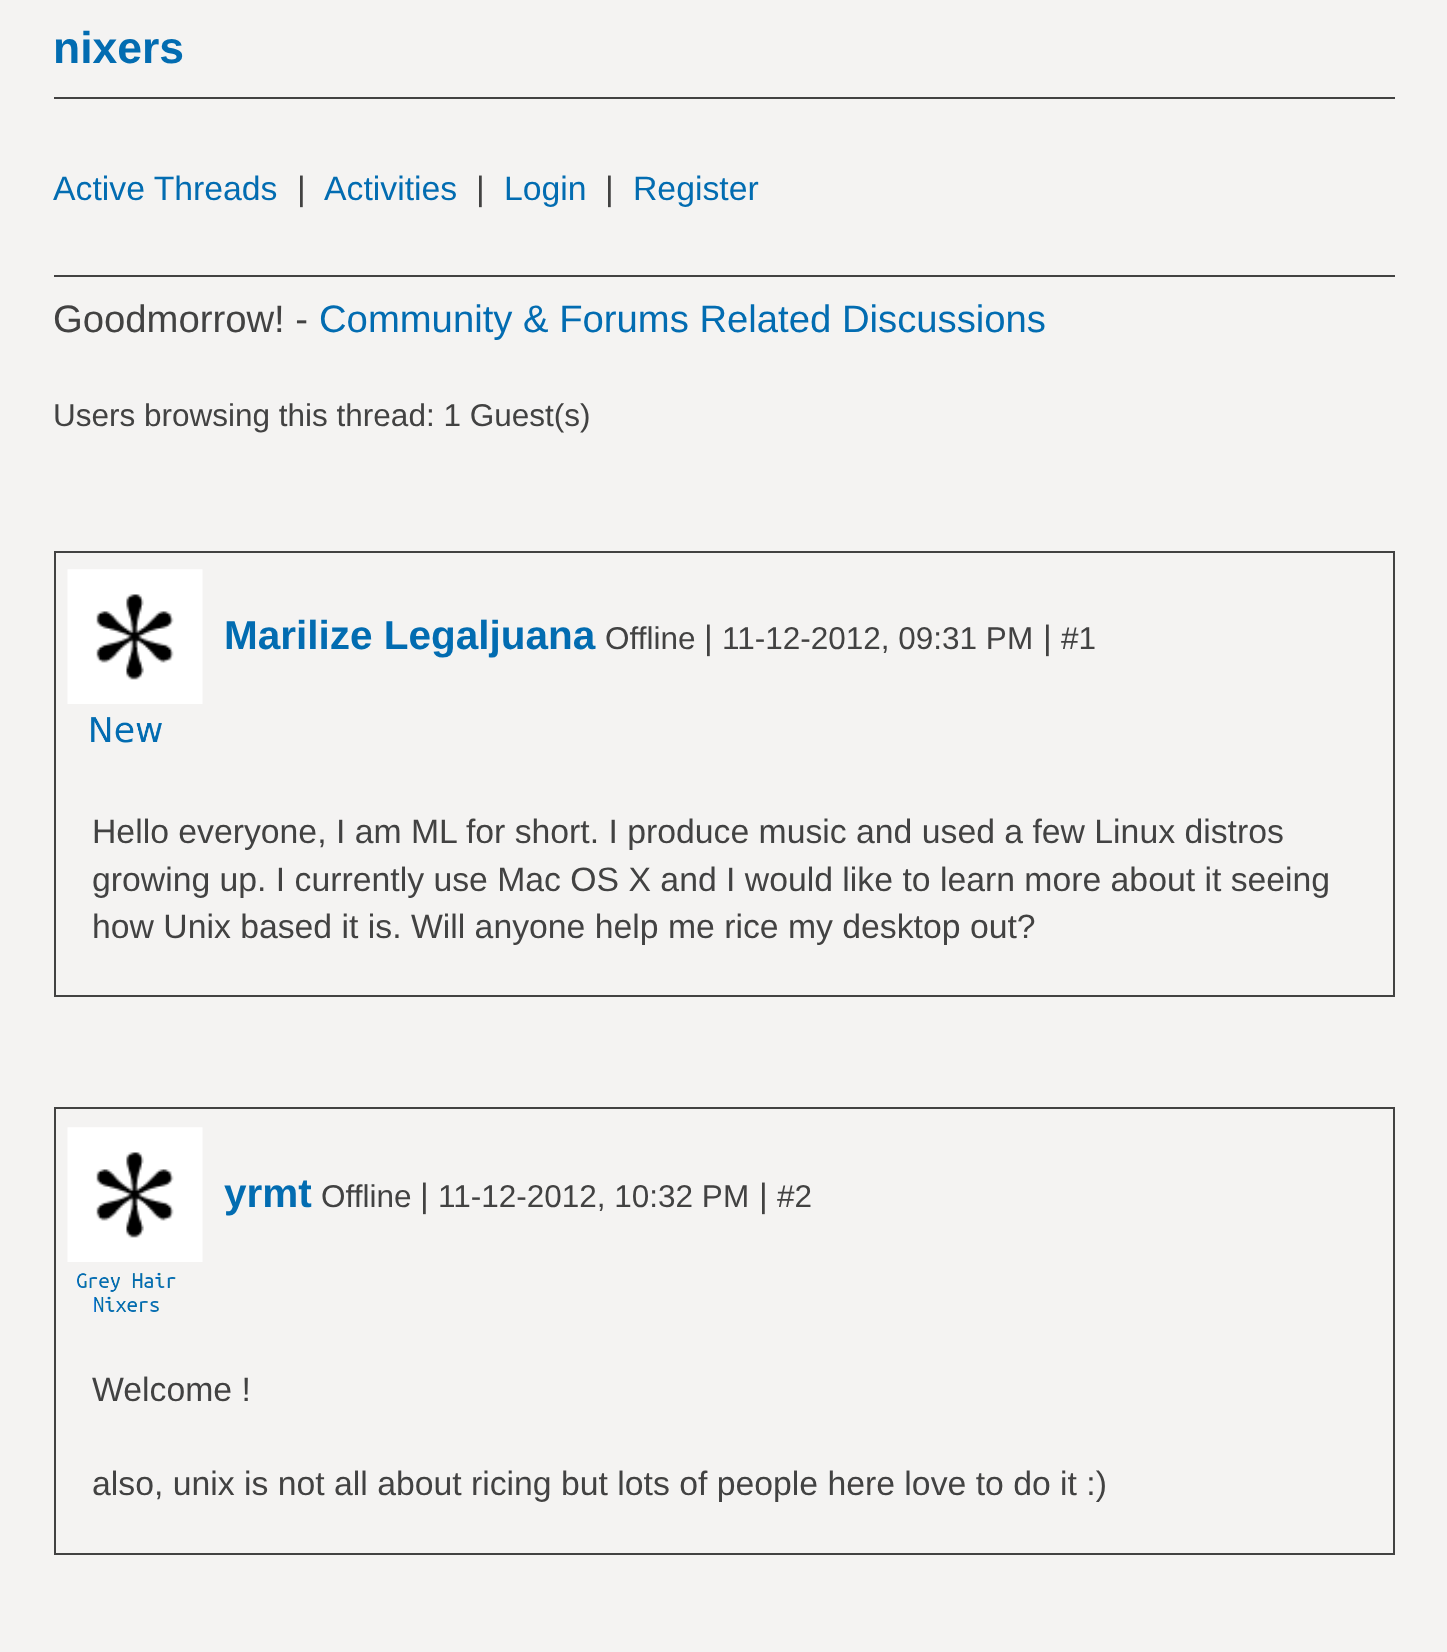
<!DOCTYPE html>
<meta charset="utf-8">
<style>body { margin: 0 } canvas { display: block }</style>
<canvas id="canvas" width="1447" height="1652"></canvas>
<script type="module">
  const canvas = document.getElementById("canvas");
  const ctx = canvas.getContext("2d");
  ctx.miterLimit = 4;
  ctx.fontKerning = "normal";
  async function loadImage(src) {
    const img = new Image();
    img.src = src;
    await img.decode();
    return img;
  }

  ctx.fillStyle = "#f4f3f2";
  ctx.fillRect(0, 0, 1447, 1652);
  ctx.font = "bold 44.5px Liberation Sans";
  ctx.fillStyle = "#026cb1";
  ctx.fillText("nixers", 53, 63);
  ctx.fillStyle = "#424242";
  ctx.fillRect(54, 97, 1341, 2);
  ctx.font = "33.75px Liberation Sans";
  ctx.fillStyle = "#026cb1";
  ctx.fillText("Active Threads", 53, 200);
  ctx.fillStyle = "#424242";
  ctx.fillText("|", 297, 200);
  ctx.fillStyle = "#026cb1";
  ctx.fillText("Activities", 324, 200);
  ctx.fillStyle = "#424242";
  ctx.fillText("|", 476, 200);
  ctx.fillStyle = "#026cb1";
  ctx.fillText("Login", 504, 200);
  ctx.fillStyle = "#424242";
  ctx.fillText("|", 605, 200);
  ctx.fillStyle = "#026cb1";
  ctx.fillText("Register", 633, 200);
  ctx.fillStyle = "#424242";
  ctx.fillRect(54, 275, 1341, 2);
  ctx.font = "38.25px Liberation Sans";
  ctx.fillText("Goodmorrow! -", 53, 332);
  ctx.fillStyle = "#026cb1";
  ctx.fillText("Community & Forums Related Discussions", 319, 332);
  ctx.font = "31.5px Liberation Sans";
  ctx.fillStyle = "#424242";
  ctx.fillText("Users browsing this thread: 1 Guest(s)", 53, 426);
  ctx.strokeStyle = "#424242";
  ctx.lineWidth = 2;
  ctx.strokeRect(55, 552, 1339, 444);
  ctx.drawImage(await loadImage("img1.png"), 67, 569, 136, 135);
  ctx.font = "bold 40.5px Liberation Sans";
  ctx.fillStyle = "#026cb1";
  ctx.fillText("Marilize Legaljuana", 224, 649);
  ctx.font = "31.5px Liberation Sans";
  ctx.fillStyle = "#424242";
  ctx.fillText("Offline", 605, 649);
  ctx.font = "33.75px Liberation Sans";
  ctx.fillText("|", 704, 649);
  ctx.font = "31.5px Liberation Sans";
  ctx.fillText("11-12-2012, 09:31 PM", 722, 649);
  ctx.font = "33.75px Liberation Sans";
  ctx.fillText("|", 1043, 649);
  ctx.font = "31.5px Liberation Sans";
  ctx.fillText("#1", 1061, 649);
  ctx.drawImage(await loadImage("img2.png"), 91, 717, 71, 26);
  ctx.font = "33.75px Liberation Sans";
  ctx.fillText("Hello everyone, I am ML for short. I produce music and used a few Linux distros", 92, 843);
  ctx.fillText("growing up. I currently use Mac OS X and I would like to learn more about it seeing", 92, 891);
  ctx.fillText("how Unix based it is. Will anyone help me rice my desktop out?", 92, 938);
  ctx.strokeRect(55, 1108, 1339, 446);
  ctx.drawImage(await loadImage("img3.png"), 67, 1127, 136, 135);
  ctx.font = "bold 40.5px Liberation Sans";
  ctx.fillStyle = "#026cb1";
  ctx.fillText("yrmt", 224, 1207);
  ctx.font = "31.5px Liberation Sans";
  ctx.fillStyle = "#424242";
  ctx.fillText("Offline", 321, 1207);
  ctx.font = "33.75px Liberation Sans";
  ctx.fillText("|", 420, 1207);
  ctx.font = "31.5px Liberation Sans";
  ctx.fillText("11-12-2012, 10:32 PM", 438, 1207);
  ctx.font = "33.75px Liberation Sans";
  ctx.fillText("|", 759, 1207);
  ctx.font = "31.5px Liberation Sans";
  ctx.fillText("#2", 777, 1207);
  ctx.drawImage(await loadImage("img4.png"), 77, 1272, 99, 40);
  ctx.font = "33.75px Liberation Sans";
  ctx.fillText("Welcome !", 92, 1401);
  ctx.fillText("also, unix is not all about ricing but lots of people here love to do it :)", 92, 1495);
</script>
